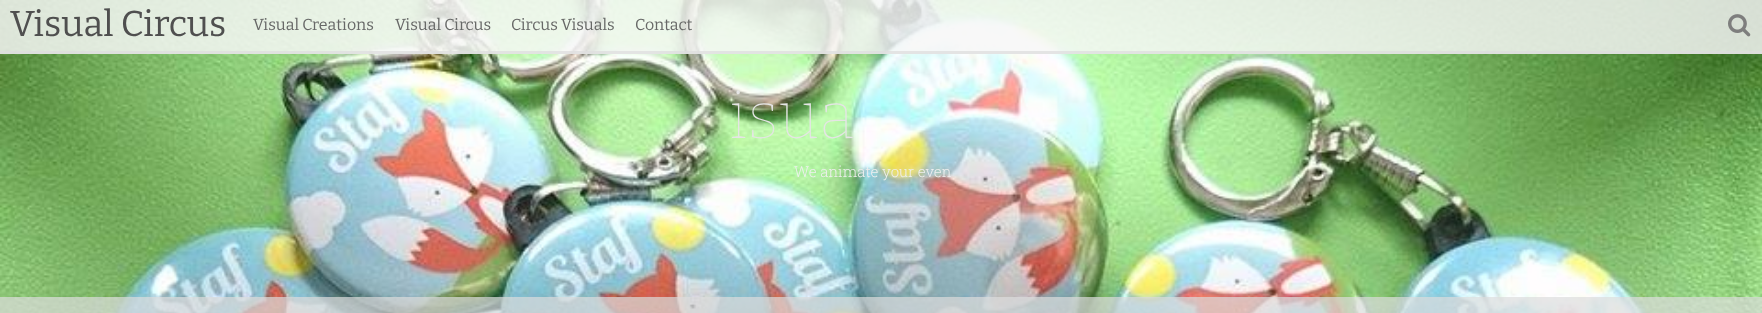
<!DOCTYPE html>
<meta charset="utf-8">
<style>body { margin: 0 } canvas { display: block }</style>
<canvas id="canvas" width="1762" height="313"></canvas>
<script type="module">
  const canvas = document.getElementById("canvas");
  const ctx = canvas.getContext("2d");
  ctx.miterLimit = 4;
  ctx.fontKerning = "normal";
  async function loadImage(src) {
    const img = new Image();
    img.src = src;
    await img.decode();
    return img;
  }

  ctx.fillStyle = "#ffffff";
  ctx.fillRect(0, 0, 1762, 313);
  ctx.drawImage(await loadImage("img2.png"), 0, 0, 1762, 313);
  ctx.fillStyle = "rgba(247, 247, 247, 0.84)";
  ctx.fillRect(0, 0, 1762, 54);
  ctx.fillStyle = "rgba(221, 221, 221, 0.75)";
  ctx.fillRect(0, 51, 1762, 3);
  ctx.font = "36px Bitter";
  ctx.fillStyle = "#4f4f4f";
  ctx.fillText("Visual Circus", 10, 36);
  ctx.font = "16px Bitter";
  ctx.fillStyle = "#676867";
  ctx.fillText("Visual Creations", 253, 30);
  ctx.fillText("Visual Circus", 395, 30);
  ctx.fillText("Circus Visuals", 511, 30);
  ctx.fillText("Contact", 635, 30);
  ctx.drawImage(await loadImage("img1.png"), 1728, 14, 23, 23);
  ctx.font = "100 66px Bitter";
  ctx.fillStyle = "#e5e5e5";
  ctx.fillText("isua", 729, 138);
  ctx.font = "300 15px Roboto Slab";
  ctx.fillStyle = "#efefef";
  ctx.fillText("We animate your even", 794, 177);
  ctx.fillStyle = "rgba(221, 221, 221, 0.7)";
  ctx.fillRect(0, 297, 1762, 16);
</script>
